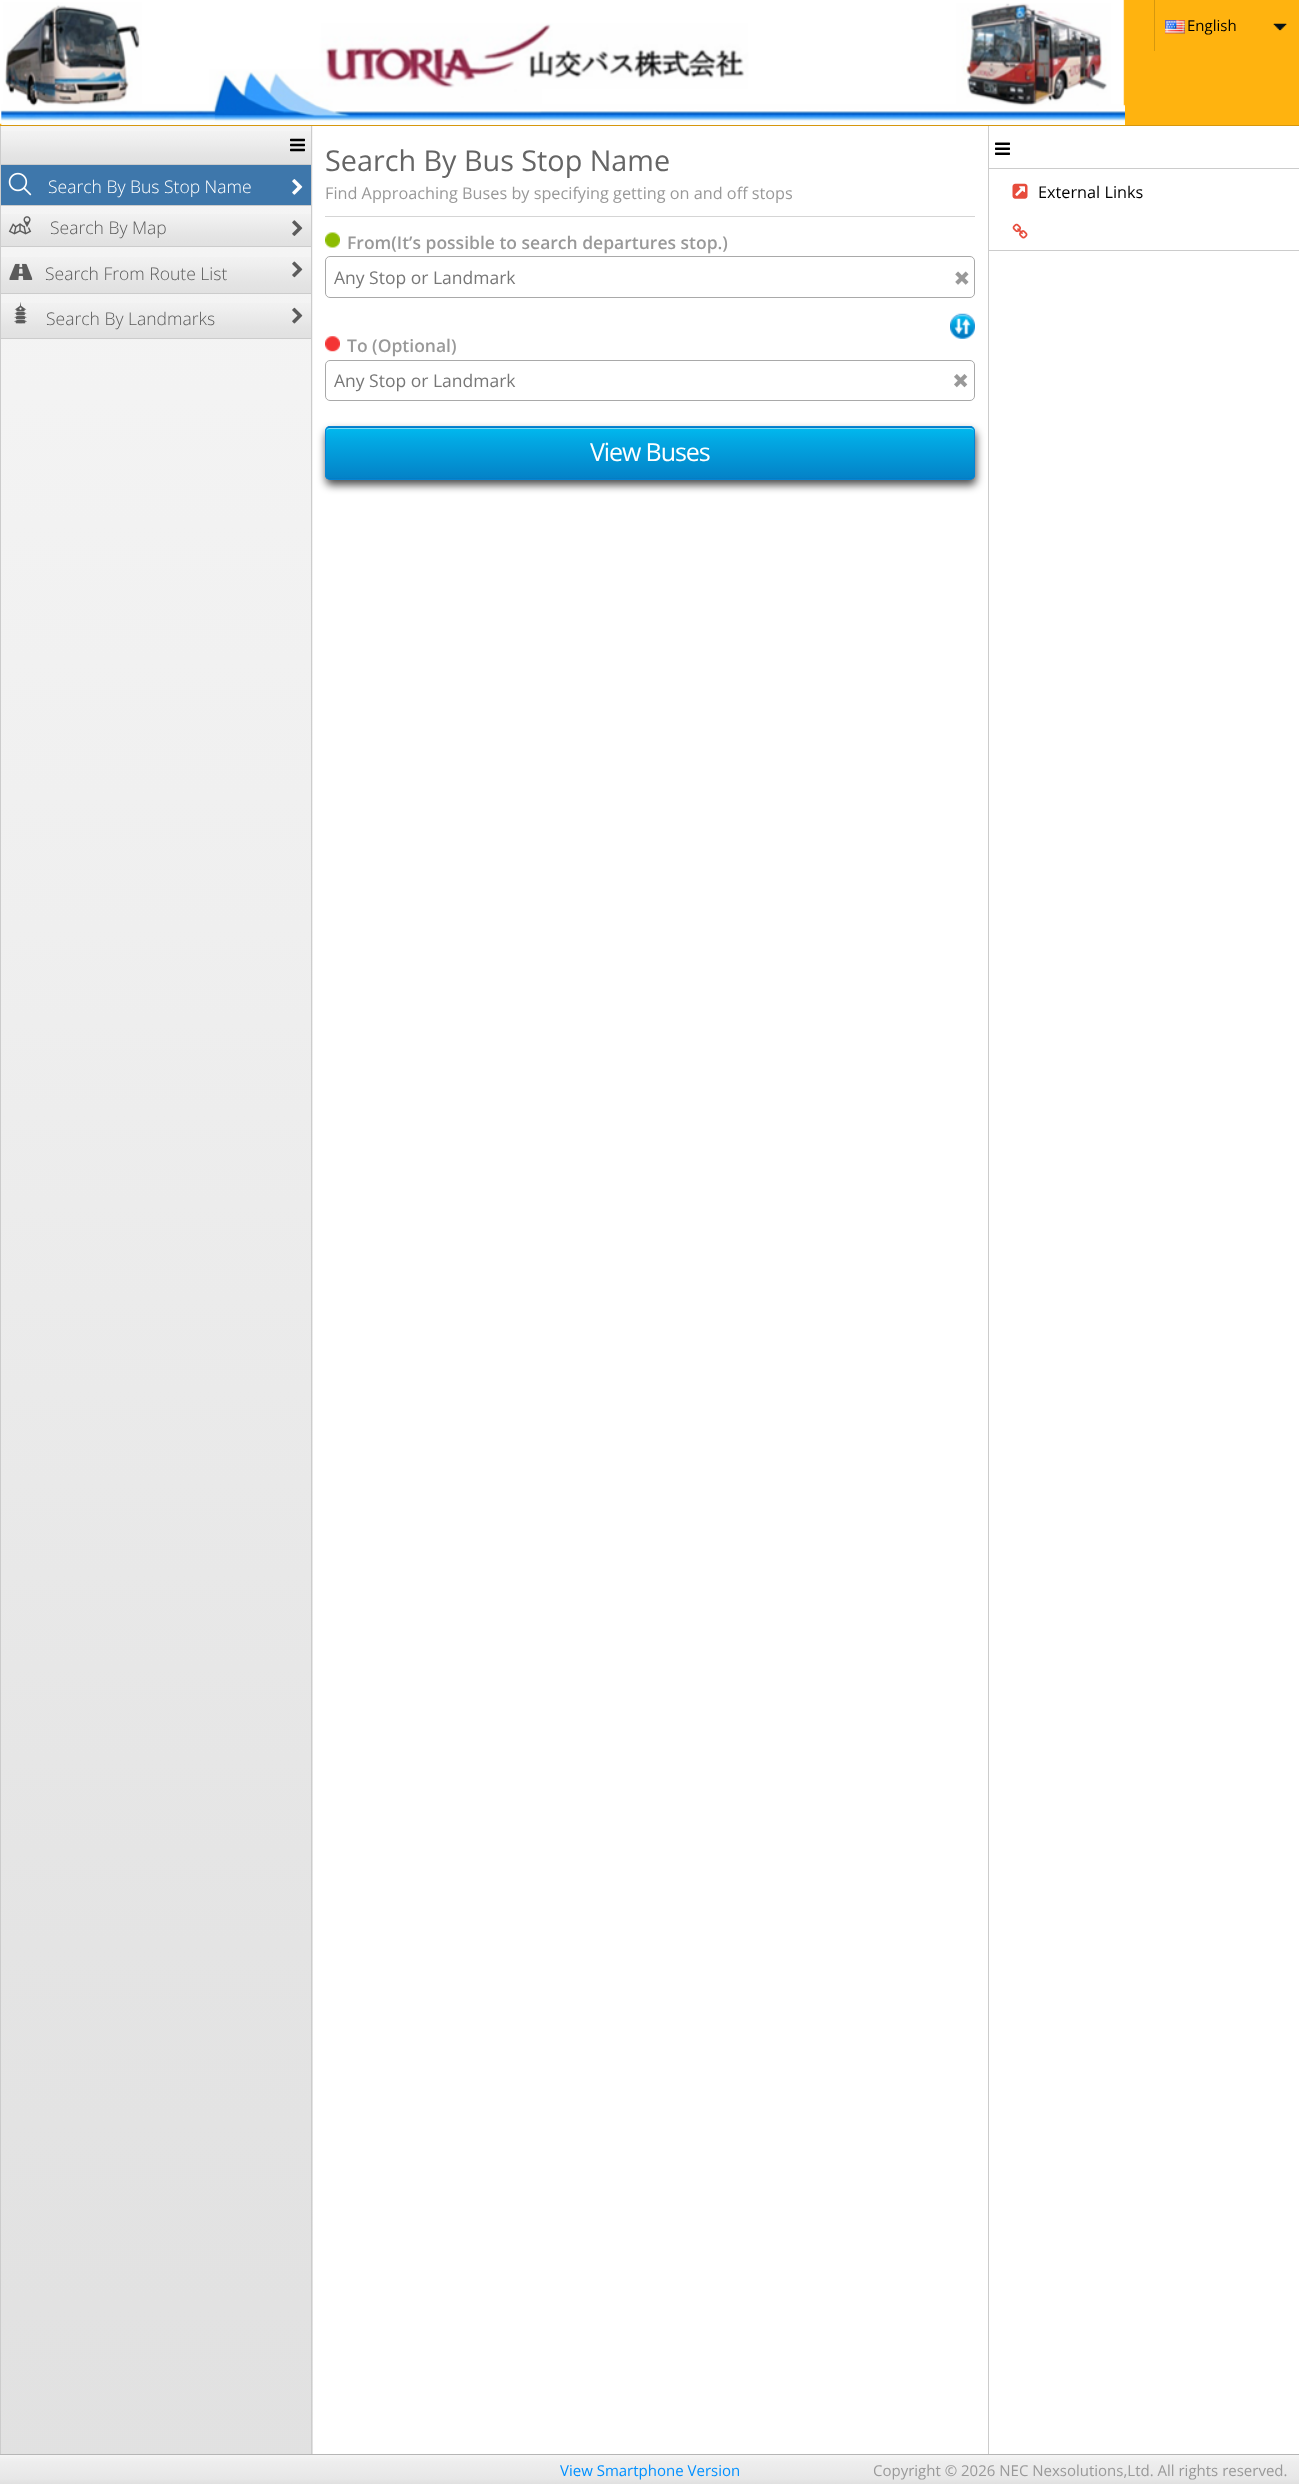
<!DOCTYPE html>
<meta charset="utf-8">
<style>body { margin: 0 } canvas { display: block }</style>
<canvas id="canvas" width="1299" height="2484"></canvas>
<script type="module">
  const canvas = document.getElementById("canvas");
  const ctx = canvas.getContext("2d");
  ctx.miterLimit = 4;
  ctx.fontKerning = "normal";
  async function loadImage(src) {
    const img = new Image();
    img.src = src;
    await img.decode();
    return img;
  }
  let gradient;

  ctx.fillStyle = "#ffffff";
  ctx.fillRect(0, 0, 1299, 2484);
  ctx.fillStyle = "#ffb30f";
  ctx.fillRect(0, 0, 1299, 125);
  ctx.fillStyle = "#d6970e";
  ctx.fillRect(0, 125, 1299, 1);
  ctx.drawImage(await loadImage("img1.png"), 0, 0, 1125, 125);
  ctx.fillRect(1154, 0, 1, 51);
  ctx.drawImage(await loadImage("img2.png"), 1165, 20, 20, 14);
  ctx.font = "15px Open Sans";
  ctx.fillStyle = "#000000";
  ctx.fillText("English", 1187, 31);
  ctx.drawImage(await loadImage("img3.png"), 1273, 23, 14, 8);
  gradient = ctx.createLinearGradient(156, 126, 156, 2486);
  gradient.addColorStop(0, "#f5f5f5");
  gradient.addColorStop(0.34, "#efefef");
  gradient.addColorStop(0.77, "#e4e4e4");
  gradient.addColorStop(1, "#e1e1e1");
  ctx.fillStyle = gradient;
  ctx.fillRect(1, 126, 312, 2328);
  ctx.fillStyle = "#cccccc";
  ctx.fillRect(311, 126, 1, 2328);
  ctx.fillRect(0, 126, 1, 2328);
  gradient = ctx.createLinearGradient(156, 126, 156, 164);
  gradient.addColorStop(0, "#f5f5f5");
  gradient.addColorStop(0.34, "#efefef");
  gradient.addColorStop(0.77, "#e4e4e4");
  gradient.addColorStop(1, "#e1e1e1");
  ctx.fillStyle = gradient;
  ctx.fillRect(1, 131, 310, 33);
  ctx.fillStyle = "#cccccc";
  ctx.fillRect(1, 164, 310, 1);
  ctx.drawImage(await loadImage("img4.png"), 290, 138, 15, 14);
  ctx.fillRect(1, 205, 310, 1);
  ctx.fillStyle = "#3e77ab";
  ctx.fillRect(1, 165, 310, 40);
  ctx.drawImage(await loadImage("img5.png"), 8, 172, 24, 24);
  ctx.font = "300 17.5px Open Sans";
  ctx.fillStyle = "#ffffff";
  ctx.fillText("Search By Bus Stop Name", 48, 193);
  ctx.drawImage(await loadImage("img6.png"), 292, 179, 11, 16);
  gradient = ctx.createLinearGradient(156, 206, 156, 246);
  gradient.addColorStop(0, "#f5f5f5");
  gradient.addColorStop(0.34, "#efefef");
  gradient.addColorStop(0.77, "#e4e4e4");
  gradient.addColorStop(1, "#e1e1e1");
  ctx.fillStyle = gradient;
  ctx.fillRect(1, 214, 310, 32);
  ctx.fillStyle = "#cccccc";
  ctx.fillRect(1, 246, 310, 1);
  ctx.drawImage(await loadImage("img7.png"), 8, 216, 24, 19);
  ctx.fillStyle = "#5b5b5b";
  ctx.fillText("Search By Map", 50, 234);
  ctx.drawImage(await loadImage("img8.png"), 292, 220, 11, 16);
  gradient = ctx.createLinearGradient(156, 248, 156, 293);
  gradient.addColorStop(0, "#f5f5f5");
  gradient.addColorStop(0.34, "#efefef");
  gradient.addColorStop(0.77, "#e4e4e4");
  gradient.addColorStop(1, "#e1e1e1");
  ctx.fillStyle = gradient;
  ctx.fillRect(1, 257, 310, 36);
  ctx.fillStyle = "#cccccc";
  ctx.fillRect(1, 293, 310, 1);
  ctx.drawImage(await loadImage("img9.png"), 9, 263, 24, 17);
  ctx.fillStyle = "#5b5b5b";
  ctx.fillText("Search From Route List", 45, 280);
  ctx.drawImage(await loadImage("img10.png"), 292, 261, 11, 17);
  gradient = ctx.createLinearGradient(156, 294, 156, 338);
  gradient.addColorStop(0, "#f5f5f5");
  gradient.addColorStop(0.34, "#efefef");
  gradient.addColorStop(0.77, "#e4e4e4");
  gradient.addColorStop(1, "#e1e1e1");
  ctx.fillStyle = gradient;
  ctx.fillRect(1, 303, 310, 35);
  ctx.fillStyle = "#cccccc";
  ctx.fillRect(1, 338, 310, 1);
  ctx.drawImage(await loadImage("img11.png"), 14, 302, 13, 22);
  ctx.fillStyle = "#5b5b5b";
  ctx.fillText("Search By Landmarks", 46, 325);
  ctx.drawImage(await loadImage("img12.png"), 292, 307, 11, 17);
  ctx.font = "28.75px Open Sans";
  ctx.fillStyle = "#656565";
  ctx.fillText("Search By Bus Stop Name", 325, 171);
  ctx.fillStyle = "#d5d5d5";
  ctx.fillRect(325, 216, 650, 1);
  ctx.font = "16.25px Open Sans";
  ctx.fillStyle = "#999999";
  ctx.fillText("Find Approaching Buses by specifying getting on and off stops", 325, 199);
  ctx.drawImage(await loadImage("img13.png"), 325, 232, 15, 16);
  ctx.font = "600 17.5px Open Sans";
  ctx.fillText("From(It’s possible to search departures stop.)", 347, 249);
  ctx.beginPath();
  ctx.roundRect(325.5, 256.5, 649, 41, 4.5);
  ctx.strokeStyle = "#a9a9a9";
  ctx.stroke();
  ctx.font = "17.5px Open Sans";
  ctx.fillStyle = "#777777";
  ctx.fillText("Any Stop or Landmark", 334, 284);
  ctx.drawImage(await loadImage("img14.png"), 955, 271, 14, 14);
  ctx.drawImage(await loadImage("img15.png"), 950, 313, 25, 26);
  ctx.drawImage(await loadImage("img16.png"), 325, 336, 15, 16);
  ctx.font = "600 17.5px Open Sans";
  ctx.fillStyle = "#999999";
  ctx.fillText("To (Optional)", 347, 352);
  ctx.beginPath();
  ctx.roundRect(325.5, 360.5, 649, 40, 4.5);
  ctx.stroke();
  ctx.font = "17.5px Open Sans";
  ctx.fillStyle = "#777777";
  ctx.fillText("Any Stop or Landmark", 334, 387);
  ctx.drawImage(await loadImage("img17.png"), 954, 374, 14, 14);
  ctx.fillStyle = "rgba(0, 0, 0, 0.7)";
  ctx.filter = "blur(4px)";
  ctx.beginPath();
  ctx.roundRect(326, 431, 650, 54, 5);
  ctx.fill();
  ctx.filter = "none";
  ctx.save();
  ctx.beginPath();
  ctx.roundRect(325, 426, 650, 54, 5);
  ctx.clip();
  gradient = ctx.createLinearGradient(650, 376, 650, 428);
  gradient.addColorStop(0, "#00baef");
  gradient.addColorStop(0.26, "#02a8e3");
  gradient.addColorStop(0.97, "#0483c8");
  gradient.addColorStop(1, "#0579c1");
  ctx.fillStyle = gradient;
  ctx.fillRect(325, 426, 650, 2);
  gradient = ctx.createLinearGradient(650, 427, 650, 479);
  gradient.addColorStop(0, "#00baef");
  gradient.addColorStop(0.26, "#02a8e3");
  gradient.addColorStop(0.97, "#0483c8");
  gradient.addColorStop(1, "#0579c1");
  ctx.fillStyle = gradient;
  ctx.fillRect(325, 428, 650, 51);
  ctx.restore();
  ctx.fillStyle = "#80dbf6";
  ctx.beginPath();
  ctx.moveTo(330, 429);
  ctx.lineTo(970, 429);
  ctx.bezierCurveTo(972, 429, 974, 430, 974, 432);
  ctx.bezierCurveTo(974, 430, 972, 428, 970, 428);
  ctx.lineTo(330, 428);
  ctx.bezierCurveTo(328, 428, 326, 430, 326, 432);
  ctx.bezierCurveTo(326, 430, 328, 429, 330, 429);
  ctx.closePath();
  ctx.fill();
  ctx.beginPath();
  ctx.roundRect(325.5, 426.5, 649, 53, 4.5);
  ctx.strokeStyle = "#0784d4";
  ctx.stroke();
  ctx.letterSpacing = "-1.1px";
  ctx.font = "25px Open Sans";
  ctx.fillStyle = "#ffffff";
  ctx.fillText("View Buses", 590, 461);
  ctx.fillStyle = "#cccccc";
  ctx.fillRect(988, 126, 1, 2328);
  ctx.fillRect(989, 168, 310, 1);
  ctx.drawImage(await loadImage("img18.png"), 995, 142, 15, 13);
  ctx.drawImage(await loadImage("img19.png"), 1012, 183, 16, 16);
  ctx.letterSpacing = "0px";
  ctx.font = "16.25px Open Sans";
  ctx.fillStyle = "#000000";
  ctx.fillText("External Links", 1038, 198);
  ctx.fillStyle = "#cccccc";
  ctx.fillRect(989, 250, 310, 1);
  ctx.drawImage(await loadImage("img20.png"), 1012, 223, 16, 16);
  gradient = ctx.createLinearGradient(650, 2455, 650, 2484);
  gradient.addColorStop(0, "#f5f5f5");
  gradient.addColorStop(0.23, "#eeeeee");
  gradient.addColorStop(0.82, "#e7e7e7");
  gradient.addColorStop(1, "#e0e0e0");
  ctx.fillStyle = gradient;
  ctx.fillRect(0, 2455, 1299, 29);
  ctx.fillStyle = "#b6b6b6";
  ctx.fillRect(0, 2454, 1299, 1);
  ctx.font = "15px Open Sans";
  ctx.fillStyle = "#0090ff";
  ctx.fillText("View Smartphone Version", 560, 2476);
  ctx.fillStyle = "#999999";
  ctx.fillText("Copyright © 2026 NEC Nexsolutions,Ltd. All rights reserved.", 873, 2476);
</script>
